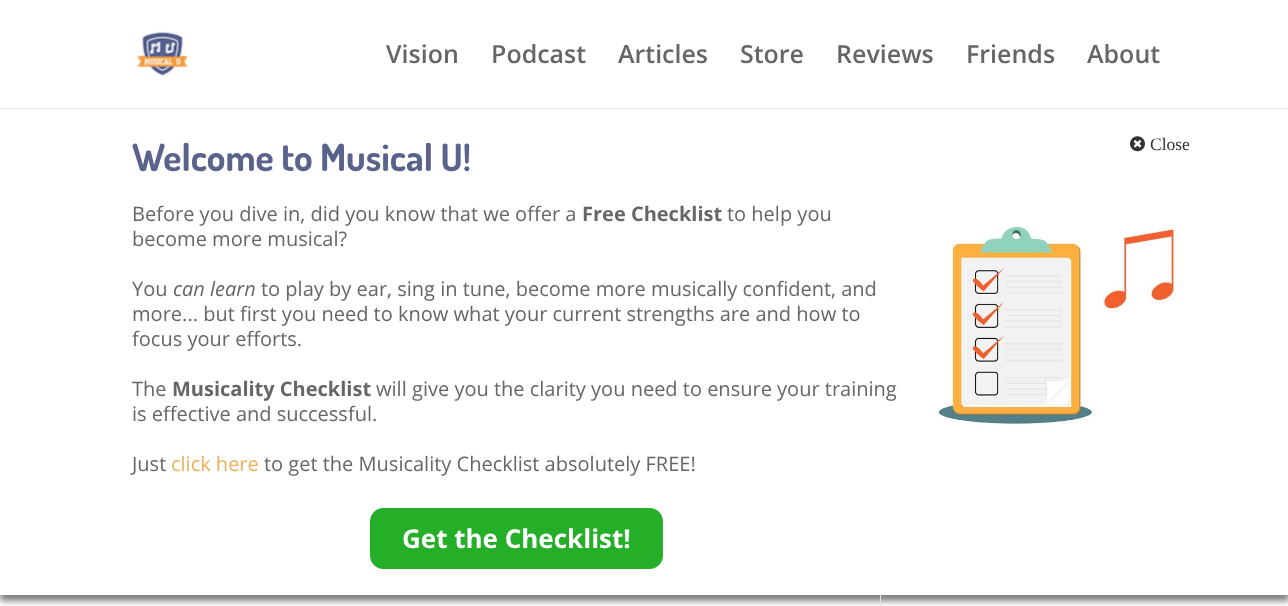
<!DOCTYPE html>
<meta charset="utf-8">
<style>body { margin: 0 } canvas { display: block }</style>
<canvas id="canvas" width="1288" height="606"></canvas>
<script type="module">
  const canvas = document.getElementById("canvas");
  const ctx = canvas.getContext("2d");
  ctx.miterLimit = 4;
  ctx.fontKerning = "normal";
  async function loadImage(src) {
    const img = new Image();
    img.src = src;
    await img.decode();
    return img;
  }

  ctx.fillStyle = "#ffffff";
  ctx.fillRect(0, 0, 1288, 606);
  ctx.save();
  ctx.beginPath();
  ctx.rect(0, 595, 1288, 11);
  ctx.clip();
  ctx.fillStyle = "rgba(0, 0, 0, 0.5)";
  ctx.filter = "blur(3px)";
  ctx.beginPath();
  ctx.rect(0, 114, 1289, 487);
  ctx.fill();
  ctx.filter = "none";
  ctx.restore();
  ctx.fillStyle = "#e6e6e6";
  ctx.beginPath();
  ctx.moveTo(0, 108);
  ctx.lineTo(0, 109);
  ctx.lineTo(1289, 109);
  ctx.lineTo(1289, 1);
  ctx.lineTo(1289, 108);
  ctx.closePath();
  ctx.fill();
  ctx.drawImage(await loadImage("img1.png"), 136, 31, 53, 45);
  ctx.font = "600 25px Open Sans";
  ctx.fillStyle = "#666666";
  ctx.fillText("Vision", 386, 63);
  ctx.fillText("Podcast", 491, 63);
  ctx.fillText("Articles", 618, 63);
  ctx.fillText("Store", 740, 63);
  ctx.fillText("Reviews", 836, 63);
  ctx.fillText("Friends", 966, 63);
  ctx.fillText("About", 1087, 63);
  ctx.font = "bold 37.5px Dosis";
  ctx.fillStyle = "#59638c";
  ctx.fillText("Welcome to Musical U!", 132, 171);
  ctx.drawImage(await loadImage("img2.png"), 1130, 136, 15, 16);
  ctx.font = "17.5px Liberation Serif";
  ctx.fillStyle = "#333333";
  ctx.fillText("Close", 1150, 150);
  ctx.font = "20px Open Sans";
  ctx.fillStyle = "#666666";
  ctx.fillText("Before you dive in, did you know that we offer a", 132, 221);
  ctx.font = "bold 20px Open Sans";
  ctx.fillText("Free Checklist", 582, 221);
  ctx.font = "20px Open Sans";
  ctx.fillText("to help you", 727, 221);
  ctx.fillText("become more musical?", 132, 246);
  ctx.fillText("You", 132, 296);
  ctx.font = "italic 20px Open Sans";
  ctx.fillText("can learn", 173, 296);
  ctx.font = "20px Open Sans";
  ctx.fillText("to play by ear, sing in tune, become more musically confident, and", 261, 296);
  ctx.fillText("more... but first you need to know what your current strengths are and how to", 132, 321);
  ctx.fillText("focus your efforts.", 132, 346);
  ctx.fillText("The", 132, 396);
  ctx.font = "bold 20px Open Sans";
  ctx.fillText("Musicality Checklist", 172, 396);
  ctx.font = "20px Open Sans";
  ctx.fillText("will give you the clarity you need to ensure your training", 376, 396);
  ctx.fillText("is effective and successful.", 132, 421);
  ctx.fillText("Just", 132, 471);
  ctx.fillStyle = "#edb059";
  ctx.fillText("click here", 171, 471);
  ctx.fillStyle = "#666666";
  ctx.fillText("to get the Musicality Checklist absolutely FREE!", 264, 471);
  ctx.fillStyle = "#25af29";
  ctx.beginPath();
  ctx.roundRect(370.5, 508.5, 292, 60, 12.5);
  ctx.fill();
  ctx.strokeStyle = "#25af29";
  ctx.stroke();
  ctx.font = "bold 26px Open Sans";
  ctx.fillStyle = "#ffffff";
  ctx.fillText("Get the Checklist!", 402, 548);
  ctx.drawImage(await loadImage("img3.png"), 935, 223, 246, 202);
  ctx.fillStyle = "#e2e2e2";
  ctx.fillRect(880, 595, 1, 11);
</script>
